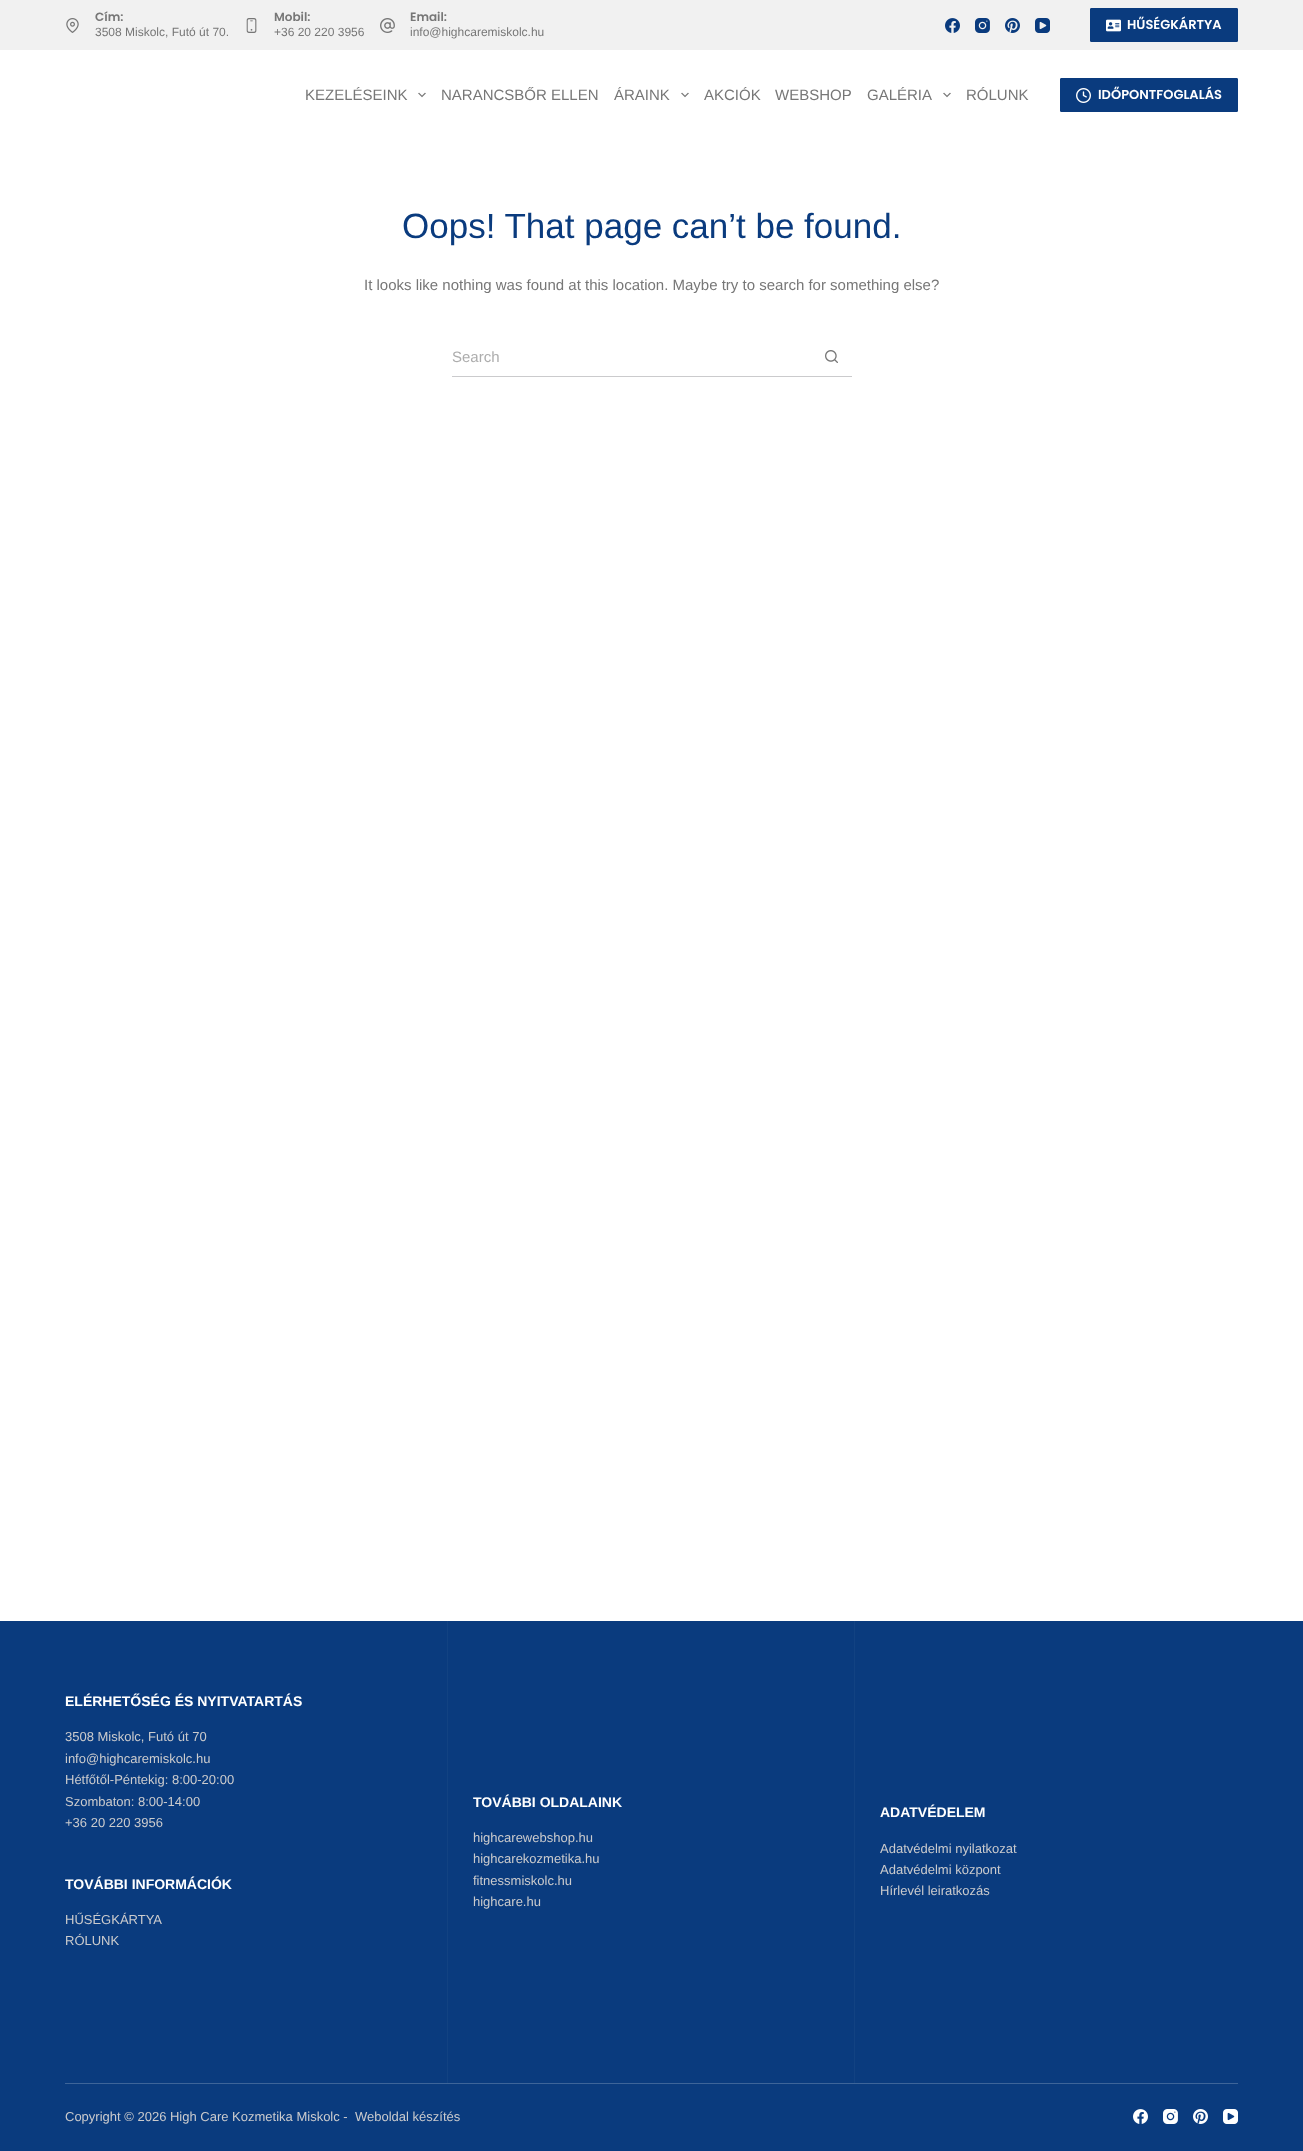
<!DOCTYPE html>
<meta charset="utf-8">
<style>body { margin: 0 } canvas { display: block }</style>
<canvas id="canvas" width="1303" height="2151"></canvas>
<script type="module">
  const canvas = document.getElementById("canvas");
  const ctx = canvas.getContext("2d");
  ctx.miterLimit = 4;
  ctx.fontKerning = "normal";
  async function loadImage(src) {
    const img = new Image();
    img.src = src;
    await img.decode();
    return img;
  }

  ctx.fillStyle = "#ffffff";
  ctx.fillRect(0, 0, 1303, 2151);
  ctx.fillStyle = "#f1f1f1";
  ctx.fillRect(0, 0, 1303, 50);
  ctx.drawImage(await loadImage("img1.png"), 66, 18, 13, 15);
  ctx.font = "600 12px Poppins";
  ctx.fillStyle = "#777777";
  ctx.fillText("Cím:", 95, 21);
  ctx.font = "12px Liberation Sans";
  ctx.fillText("3508 Miskolc, Futó út 70.", 95, 36);
  ctx.drawImage(await loadImage("img2.png"), 246, 18, 11, 15);
  ctx.font = "600 12px Poppins";
  ctx.fillText("Mobil:", 274, 21);
  ctx.font = "12px Liberation Sans";
  ctx.fillText("+36 20 220 3956", 274, 36);
  ctx.drawImage(await loadImage("img3.png"), 380, 18, 15, 15);
  ctx.font = "600 12px Poppins";
  ctx.fillText("Email:", 410, 21);
  ctx.font = "12px Liberation Sans";
  ctx.fillText("info@highcaremiskolc.hu", 410, 36);
  ctx.drawImage(await loadImage("img4.png"), 945, 18, 15, 15);
  ctx.drawImage(await loadImage("img5.png"), 975, 18, 15, 15);
  ctx.drawImage(await loadImage("img6.png"), 1005, 18, 15, 15);
  ctx.drawImage(await loadImage("img7.png"), 1035, 18, 15, 15);
  ctx.fillStyle = "#0a3b7e";
  ctx.beginPath();
  ctx.roundRect(1090.5, 8.5, 147, 33, 0.5);
  ctx.fill();
  ctx.strokeStyle = "#0a3b7e";
  ctx.stroke();
  ctx.drawImage(await loadImage("img8.png"), 1106, 19, 15, 13);
  ctx.font = "600 13px Poppins";
  ctx.fillStyle = "#ffffff";
  ctx.fillText("HŰSÉGKÁRTYA", 1127, 29);
  ctx.font = "15px Liberation Sans";
  ctx.fillStyle = "#777777";
  ctx.fillText("KEZELÉSEINK", 305, 100);
  ctx.drawImage(await loadImage("img9.png"), 418, 92, 8, 6);
  ctx.fillText("NARANCSBŐR ELLEN", 441, 100);
  ctx.fillText("ÁRAINK", 614, 100);
  ctx.drawImage(await loadImage("img9.png"), 681, 92, 8, 6);
  ctx.fillText("AKCIÓK", 704, 100);
  ctx.fillText("WEBSHOP", 775, 100);
  ctx.fillText("GALÉRIA", 867, 100);
  ctx.drawImage(await loadImage("img9.png"), 943, 92, 8, 6);
  ctx.fillText("RÓLUNK", 966, 100);
  ctx.fillStyle = "#0a3b7e";
  ctx.beginPath();
  ctx.roundRect(1060.5, 78.5, 177, 33, 0.5);
  ctx.fill();
  ctx.stroke();
  ctx.drawImage(await loadImage("img10.png"), 1076, 88, 15, 15);
  ctx.font = "600 13px Poppins";
  ctx.fillStyle = "#ffffff";
  ctx.fillText("IDŐPONTFOGLALÁS", 1098, 99);
  ctx.font = "35px Liberation Sans";
  ctx.fillStyle = "#0a3b7e";
  ctx.fillText("Oops! That page can’t be found.", 402, 238);
  ctx.font = "15px Liberation Sans";
  ctx.fillStyle = "#777777";
  ctx.fillText("It looks like nothing was found at this location. Maybe try to search for something else?", 364, 290);
  ctx.fillStyle = "#cbcbcd";
  ctx.fillRect(452, 376, 400, 1);
  ctx.fillStyle = "#adadad";
  ctx.fillText("Search", 452, 362);
  ctx.drawImage(await loadImage("img11.png"), 825, 350, 13, 13);
  ctx.fillStyle = "#0a3b7e";
  ctx.fillRect(0, 1621, 1303, 530);
  ctx.font = "bold 14px Liberation Sans";
  ctx.fillStyle = "#ffffff";
  ctx.fillText("ELÉRHETŐSÉG ÉS NYITVATARTÁS", 65, 1706);
  ctx.font = "13px Liberation Sans";
  ctx.fillStyle = "#cbcbcd";
  ctx.fillText("3508 Miskolc, Futó út 70", 65, 1741);
  ctx.fillText("info@highcaremiskolc.hu", 65, 1763);
  ctx.fillText("Hétfőtől-Péntekig: 8:00-20:00", 65, 1784);
  ctx.fillText("Szombaton: 8:00-14:00", 65, 1806);
  ctx.fillText("+36 20 220 3956", 65, 1827);
  ctx.fillStyle = "#124282";
  ctx.fillRect(447, 1621, 1, 462);
  ctx.font = "bold 14px Liberation Sans";
  ctx.fillStyle = "#ffffff";
  ctx.fillText("TOVÁBBI INFORMÁCIÓK", 65, 1889);
  ctx.font = "13px Liberation Sans";
  ctx.fillStyle = "#cbcbcd";
  ctx.fillText("HŰSÉGKÁRTYA", 65, 1924);
  ctx.fillText("RÓLUNK", 65, 1945);
  ctx.font = "bold 14px Liberation Sans";
  ctx.fillStyle = "#ffffff";
  ctx.fillText("TOVÁBBI OLDALAINK", 473, 1807);
  ctx.font = "13px Liberation Sans";
  ctx.fillStyle = "#cbcbcd";
  ctx.fillText("highcarewebshop.hu", 473, 1842);
  ctx.fillText("highcarekozmetika.hu", 473, 1863);
  ctx.fillText("fitnessmiskolc.hu", 473, 1885);
  ctx.fillText("highcare.hu", 473, 1906);
  ctx.fillStyle = "#124282";
  ctx.fillRect(854, 1621, 1, 462);
  ctx.font = "bold 14px Liberation Sans";
  ctx.fillStyle = "#ffffff";
  ctx.fillText("ADATVÉDELEM", 880, 1817);
  ctx.font = "13px Liberation Sans";
  ctx.fillStyle = "#cbcbcd";
  ctx.fillText("Adatvédelmi nyilatkozat", 880, 1853);
  ctx.fillText("Adatvédelmi központ", 880, 1874);
  ctx.fillText("Hírlevél leiratkozás", 880, 1895);
  ctx.fillStyle = "#3e6599";
  ctx.fillRect(65, 2083, 1173, 1);
  ctx.fillStyle = "#cbcbcd";
  ctx.fillText("Copyright © 2026 High Care Kozmetika Miskolc -", 65, 2121);
  ctx.fillText("Weboldal készítés", 355, 2121);
  ctx.drawImage(await loadImage("img12.png"), 1133, 2109, 15, 15);
  ctx.drawImage(await loadImage("img13.png"), 1163, 2109, 15, 15);
  ctx.drawImage(await loadImage("img14.png"), 1193, 2109, 15, 15);
  ctx.drawImage(await loadImage("img15.png"), 1223, 2109, 15, 15);
</script>
